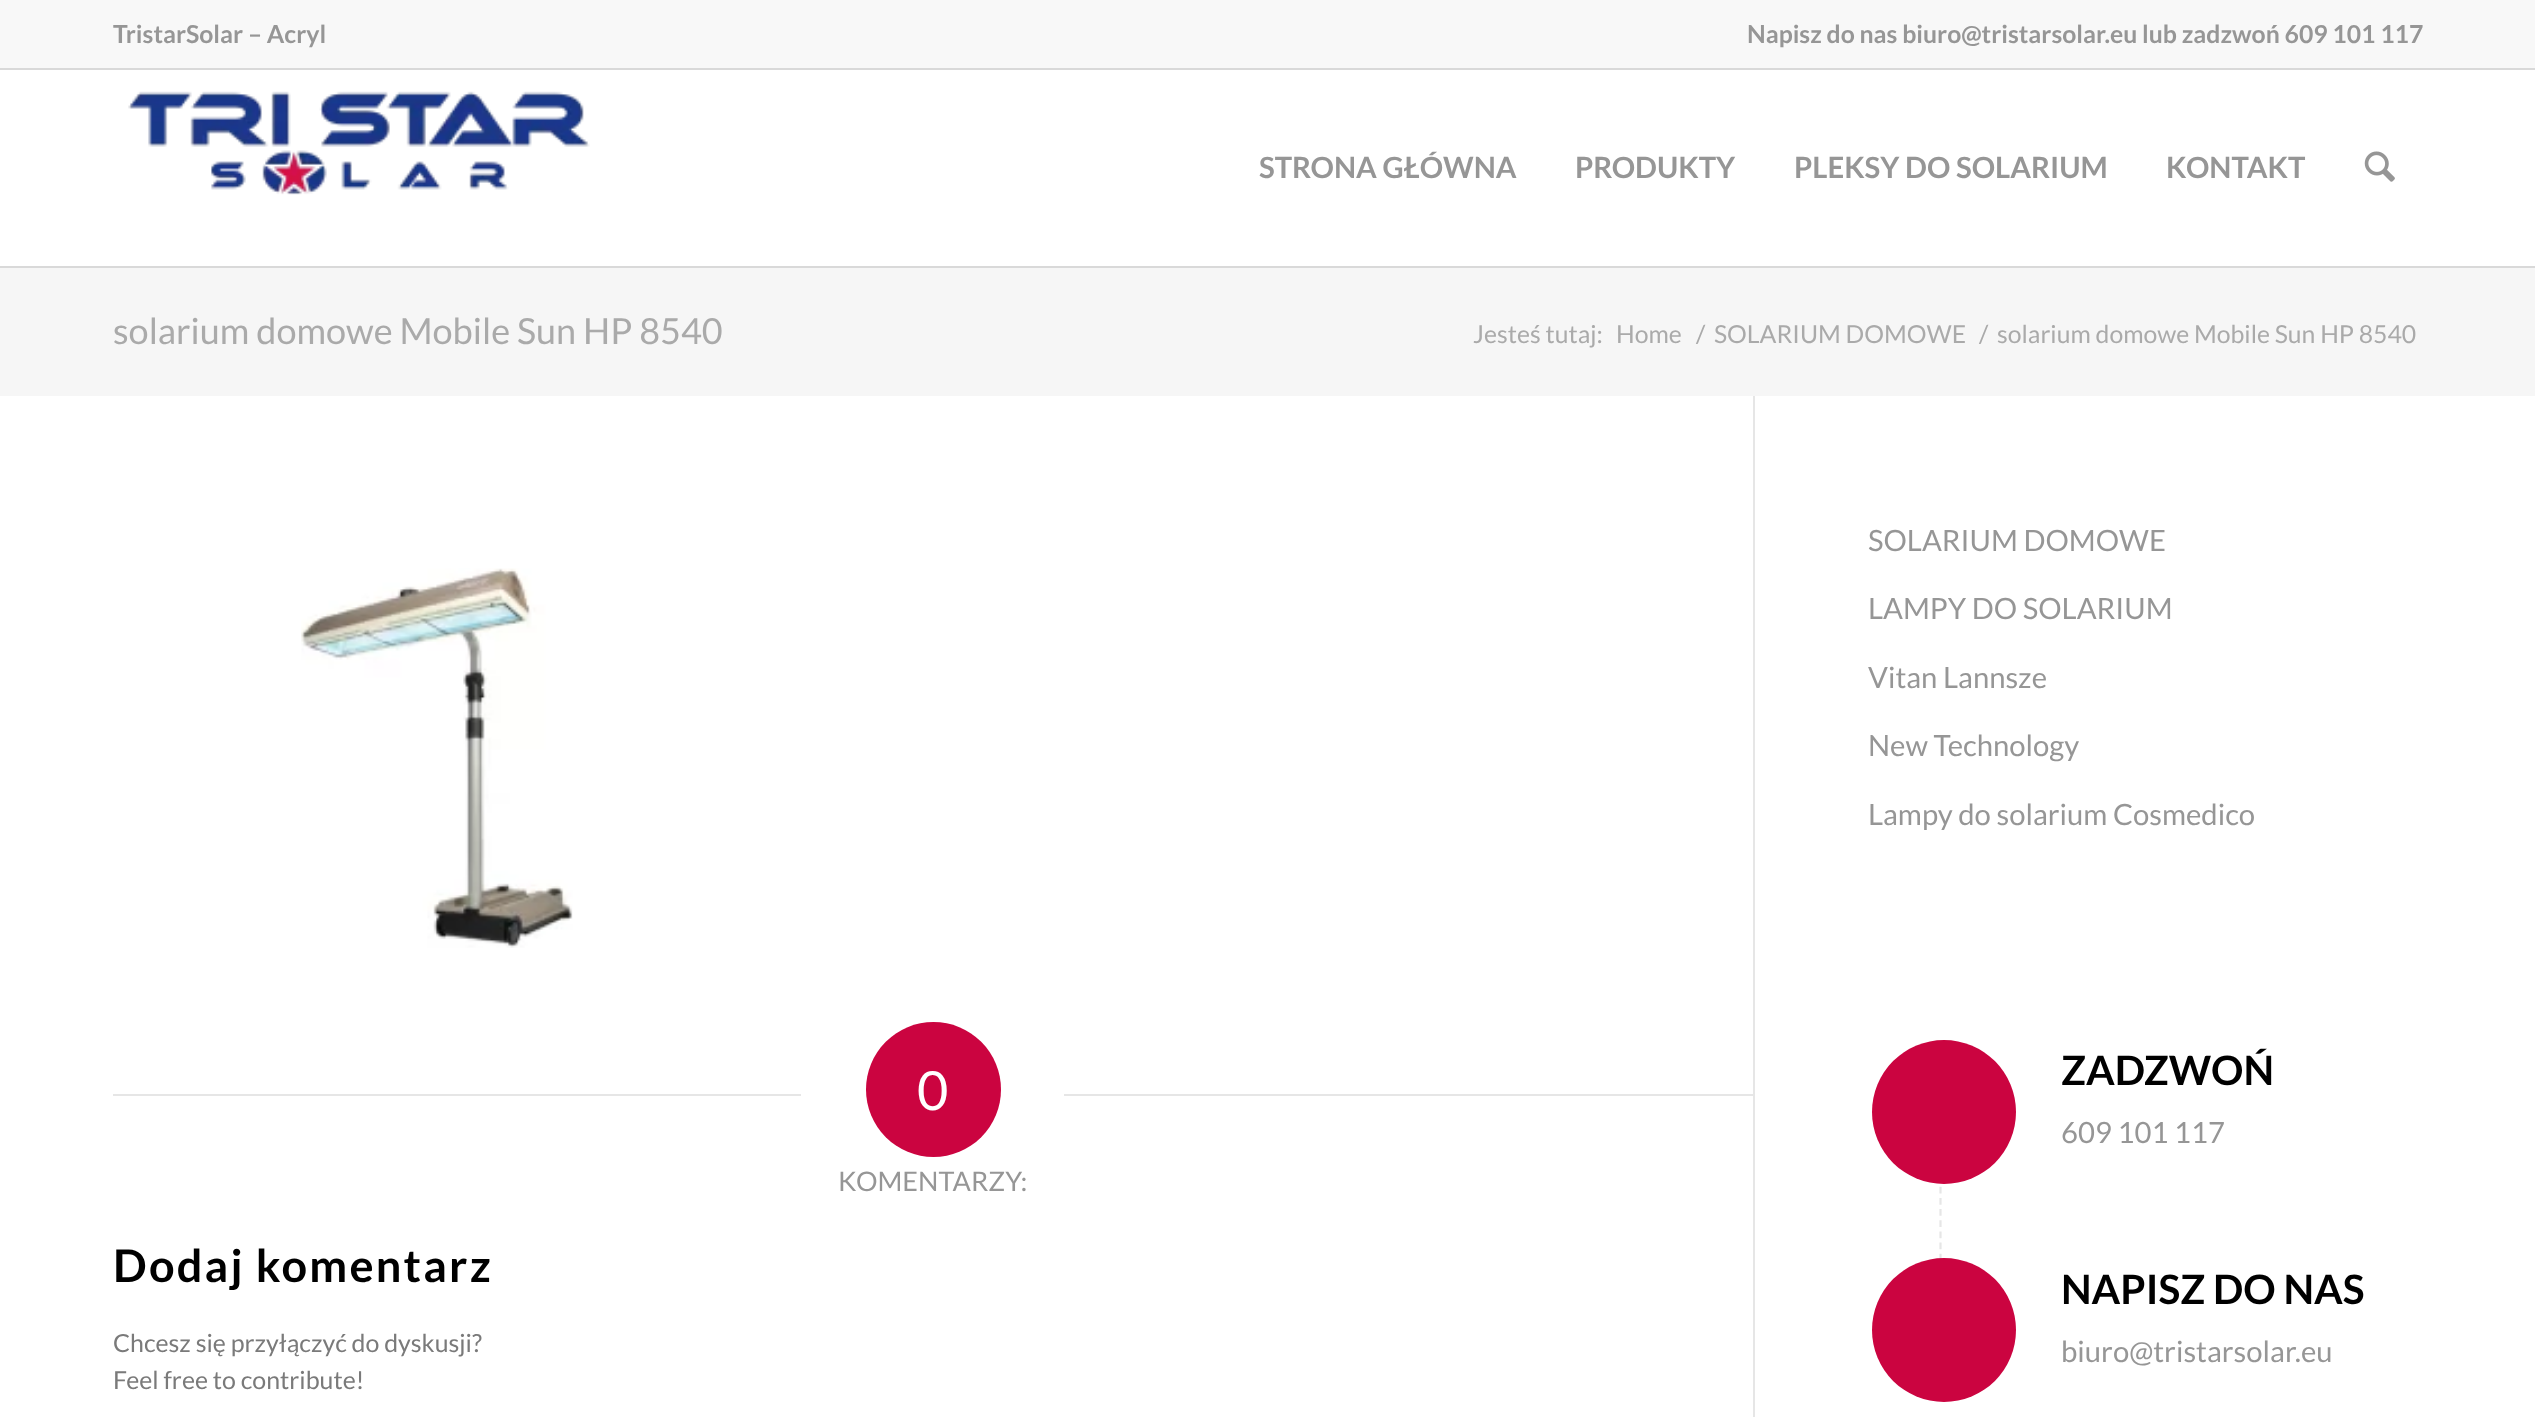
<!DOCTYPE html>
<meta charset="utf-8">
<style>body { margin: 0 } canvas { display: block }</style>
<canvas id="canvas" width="2535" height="1417"></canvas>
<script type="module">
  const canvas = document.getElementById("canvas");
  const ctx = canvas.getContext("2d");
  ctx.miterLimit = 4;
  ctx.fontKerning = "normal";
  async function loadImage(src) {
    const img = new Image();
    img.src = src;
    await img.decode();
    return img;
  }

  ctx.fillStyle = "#ffffff";
  ctx.fillRect(0, 0, 2535, 1417);
  ctx.fillStyle = "#f8f8f8";
  ctx.fillRect(0, 0, 2535, 68);
  ctx.fillStyle = "#d9d9d9";
  ctx.fillRect(0, 68, 2535, 2);
  ctx.font = "bold 24.75px Lato";
  ctx.fillStyle = "#969696";
  ctx.fillText("TristarSolar – Acryl", 113, 43);
  ctx.fillText("Napisz do nas biuro@tristarsolar.eu lub zadzwoń 609 101 117", 1747, 43);
  ctx.fillStyle = "#d9d9d9";
  ctx.fillRect(0, 266, 2535, 2);
  ctx.drawImage(await loadImage("img1.png"), 128, 91, 462, 104);
  ctx.font = "bold 29.25px Lato";
  ctx.fillStyle = "#969696";
  ctx.fillText("STRONA GŁÓWNA", 1259, 178);
  ctx.fillText("PRODUKTY", 1575, 178);
  ctx.fillText("PLEKSY DO SOLARIUM", 1794, 178);
  ctx.fillText("KONTAKT", 2166, 178);
  ctx.drawImage(await loadImage("img2.png"), 2364, 151, 31, 31);
  ctx.fillStyle = "#f6f6f6";
  ctx.fillRect(0, 268, 2535, 128);
  ctx.font = "36px Lato";
  ctx.fillStyle = "#aaaaaa";
  ctx.fillText("solarium domowe Mobile Sun HP 8540", 113, 344);
  ctx.font = "24.75px Lato";
  ctx.fillText("Jesteś tutaj:", 1473, 343);
  ctx.fillText("Home", 1616, 343);
  ctx.fillText("/", 1696, 343);
  ctx.fillText("SOLARIUM DOMOWE", 1714, 343);
  ctx.fillText("/", 1979, 343);
  ctx.fillText("solarium domowe Mobile Sun HP 8540", 1997, 343);
  ctx.fillStyle = "#e6e6e6";
  ctx.fillRect(1753, 396, 2, 1021);
  ctx.drawImage(await loadImage("img3.png"), 301, 568, 272, 380);
  ctx.fillRect(113, 1094, 688, 2);
  ctx.fillStyle = "#cb0440";
  ctx.beginPath();
  ctx.arc(933.5, 1089.5, 67.5, 0, Math.PI * 2);
  ctx.fill();
  ctx.font = "54px Lato";
  ctx.fillStyle = "#ffffff";
  ctx.fillText("0", 917, 1110);
  ctx.fillStyle = "#e6e6e6";
  ctx.fillRect(1064, 1094, 689, 2);
  ctx.font = "27px Lato";
  ctx.fillStyle = "#969696";
  ctx.fillText("KOMENTARZY:", 838, 1191);
  ctx.letterSpacing = "2.25px";
  ctx.font = "bold 45px Lato";
  ctx.fillStyle = "#000000";
  ctx.fillText("Dodaj komentarz", 113, 1282);
  ctx.letterSpacing = "0px";
  ctx.font = "24.9px Lato";
  ctx.fillStyle = "#7a7a7a";
  ctx.fillText("Chcesz się przyłączyć do dyskusji?", 113, 1352);
  ctx.fillText("Feel free to contribute!", 113, 1389);
  ctx.font = "29.25px Lato";
  ctx.fillStyle = "#969696";
  ctx.fillText("SOLARIUM DOMOWE", 1868, 551);
  ctx.fillText("LAMPY DO SOLARIUM", 1868, 619);
  ctx.fillText("Vitan Lannsze", 1868, 688);
  ctx.fillText("New Technology", 1868, 756);
  ctx.fillText("Lampy do solarium Cosmedico", 1868, 825);
  ctx.beginPath();
  ctx.moveTo(1940.5, 1042);
  ctx.lineTo(1940.5, 1260);
  ctx.strokeStyle = "#e6e6e6";
  ctx.lineWidth = 2.2;
  ctx.setLineDash([6.75, 4.39]);
  ctx.stroke();
  ctx.fillStyle = "#cb0440";
  ctx.beginPath();
  ctx.arc(1944, 1112, 72, 0, Math.PI * 2);
  ctx.fill();
  ctx.font = "bold 40.5px Lato";
  ctx.fillStyle = "#000000";
  ctx.fillText("ZADZWOŃ", 2061, 1085);
  ctx.font = "29.25px Lato";
  ctx.fillStyle = "#969696";
  ctx.fillText("609 101 117", 2061, 1143);
  ctx.fillStyle = "#cb0440";
  ctx.beginPath();
  ctx.arc(1944, 1330, 72, 0, Math.PI * 2);
  ctx.fill();
  ctx.font = "bold 40.5px Lato";
  ctx.fillStyle = "#000000";
  ctx.fillText("NAPISZ DO NAS", 2061, 1304);
  ctx.font = "29.25px Lato";
  ctx.fillStyle = "#969696";
  ctx.fillText("biuro@tristarsolar.eu", 2061, 1362);
</script>
